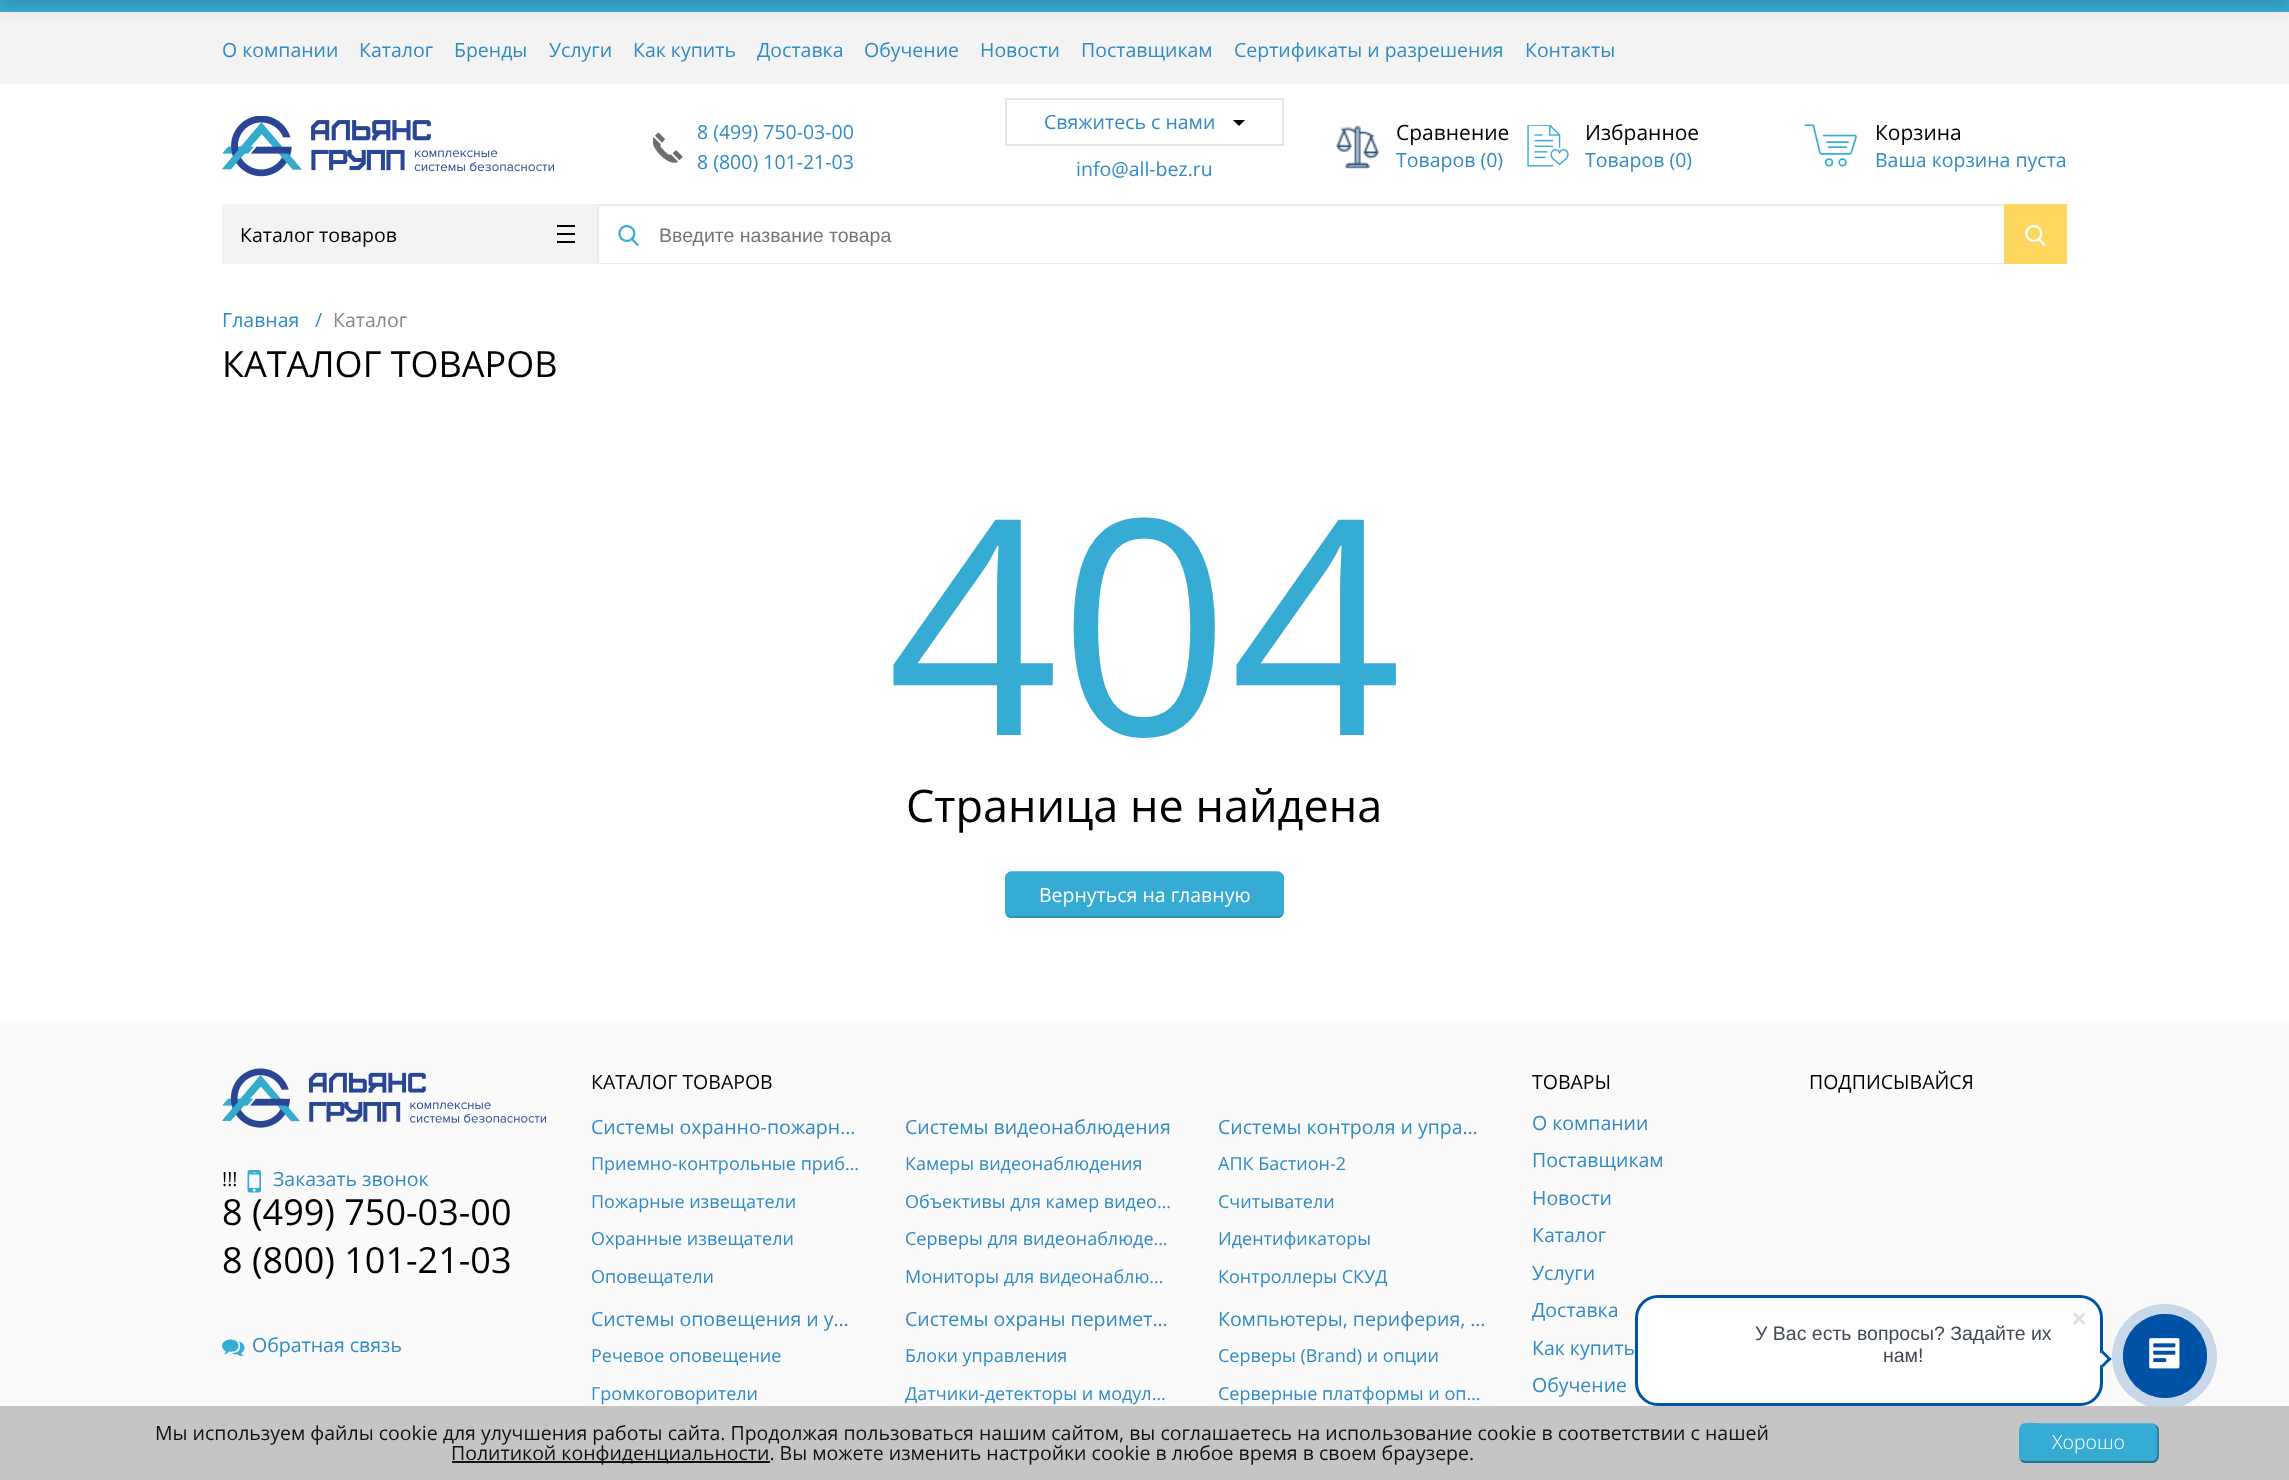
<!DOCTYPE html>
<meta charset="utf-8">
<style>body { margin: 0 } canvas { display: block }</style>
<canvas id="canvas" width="2289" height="1480"></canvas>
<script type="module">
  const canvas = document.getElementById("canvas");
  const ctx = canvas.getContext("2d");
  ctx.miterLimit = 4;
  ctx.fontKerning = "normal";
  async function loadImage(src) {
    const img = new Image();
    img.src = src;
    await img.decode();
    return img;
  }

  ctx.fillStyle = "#ffffff";
  ctx.fillRect(0, 0, 2289, 1480);
  ctx.fillStyle = "#f3f3f3";
  ctx.fillRect(0, 12, 2289, 72);
  ctx.fillStyle = "#36acd4";
  ctx.fillRect(0, 0, 2289, 12);
  ctx.fillStyle = "rgba(0, 0, 0, 0.18)";
  ctx.filter = "blur(9px)";
  ctx.beginPath();
  ctx.rect(0, -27, 2289, 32);
  ctx.fill();
  ctx.filter = "none";
  ctx.font = "19.5px Open Sans";
  ctx.fillStyle = "#308ac4";
  ctx.fillText("О компании", 222, 57);
  ctx.fillText("Каталог", 359, 57);
  ctx.fillText("Бренды", 454, 57);
  ctx.fillText("Услуги", 549, 57);
  ctx.fillText("Как купить", 633, 57);
  ctx.fillText("Доставка", 757, 57);
  ctx.fillText("Обучение", 864, 57);
  ctx.fillText("Новости", 980, 57);
  ctx.fillText("Поставщикам", 1081, 57);
  ctx.fillText("Сертификаты и разрешения", 1234, 57);
  ctx.fillText("Контакты", 1525, 57);
  ctx.drawImage(await loadImage("img1.png"), 222, 116, 332, 61);
  ctx.drawImage(await loadImage("img2.png"), 653, 132, 30, 31);
  ctx.fillText("8 (499) 750-03-00", 697, 139);
  ctx.fillText("8 (800) 101-21-03", 697, 169);
  ctx.strokeStyle = "#e5e5e5";
  ctx.lineWidth = 2;
  ctx.strokeRect(1006, 99, 277, 46);
  ctx.fillText("Свяжитесь с нами", 1044, 129);
  ctx.fillStyle = "#000000";
  ctx.beginPath();
  ctx.moveTo(1233, 120);
  ctx.lineTo(1239, 126);
  ctx.lineTo(1245, 120);
  ctx.closePath();
  ctx.fill("evenodd");
  ctx.fillStyle = "#308ac4";
  ctx.fillText("info@all-bez.ru", 1076, 176);
  ctx.drawImage(await loadImage("img3.png"), 1336, 125, 43, 44);
  ctx.font = "21px Open Sans";
  ctx.fillStyle = "#000000";
  ctx.fillText("Сравнение", 1396, 140);
  ctx.font = "19.5px Open Sans";
  ctx.fillStyle = "#308ac4";
  ctx.fillText("Товаров (0)", 1396, 167);
  ctx.drawImage(await loadImage("img4.png"), 1527, 125, 42, 42);
  ctx.font = "21px Open Sans";
  ctx.fillStyle = "#000000";
  ctx.fillText("Избранное", 1585, 140);
  ctx.font = "19.5px Open Sans";
  ctx.fillStyle = "#308ac4";
  ctx.fillText("Товаров (0)", 1585, 167);
  ctx.drawImage(await loadImage("img5.png"), 1804, 124, 53, 43);
  ctx.font = "21px Open Sans";
  ctx.fillStyle = "#000000";
  ctx.fillText("Корзина", 1875, 140);
  ctx.font = "19.5px Open Sans";
  ctx.fillStyle = "#308ac4";
  ctx.fillText("Ваша корзина пуста", 1875, 167);
  ctx.fillStyle = "#f3f3f3";
  ctx.fillRect(222, 204, 375, 60);
  ctx.fillStyle = "#000000";
  ctx.fillText("Каталог товаров", 240, 242);
  ctx.fillRect(557, 225, 18, 2);
  ctx.fillRect(557, 233, 18, 2);
  ctx.fillRect(557, 241, 18, 2);
  ctx.fillStyle = "#ebebeb";
  ctx.fillRect(597, 204, 1407, 2);
  ctx.fillRect(597, 263, 1407, 1);
  ctx.fillRect(597, 204, 2, 60);
  ctx.drawImage(await loadImage("img6.png"), 618, 225, 21, 21);
  ctx.fillStyle = "#fed75e";
  ctx.fillRect(2004, 204, 63, 60);
  ctx.drawImage(await loadImage("img7.png"), 2025, 225, 21, 21);
  ctx.font = "19.5px Liberation Sans";
  ctx.fillStyle = "#757575";
  ctx.fillText("Введите название товара", 659, 242);
  ctx.font = "19.5px Open Sans";
  ctx.fillStyle = "#308ac4";
  ctx.fillText("Главная", 222, 327);
  ctx.fillText("/", 315, 327);
  ctx.fillStyle = "#878787";
  ctx.fillText("Каталог", 333, 327);
  ctx.font = "36px Open Sans";
  ctx.fillStyle = "#000000";
  ctx.fillText("КАТАЛОГ ТОВАРОВ", 222, 377);
  ctx.font = "300px Open Sans";
  ctx.fillStyle = "#36acd4";
  ctx.fillText("404", 887, 735);
  ctx.font = "45px Open Sans";
  ctx.fillStyle = "#000000";
  ctx.fillText("Страница не найдена", 906, 822);
  ctx.fillStyle = "#36acd4";
  ctx.beginPath();
  ctx.roundRect(1005, 872, 279, 46, 6);
  ctx.fill();
  ctx.beginPath();
  ctx.moveTo(1281.5, 915.5);
  ctx.bezierCurveTo(1280.5, 916.5, 1279.5, 917, 1278, 917);
  ctx.lineTo(1010.5, 917);
  ctx.lineTo(1007.5, 915.5);
  ctx.strokeStyle = "#268eb1";
  ctx.lineWidth = 1.5;
  ctx.stroke();
  ctx.beginPath();
  ctx.moveTo(1007.5, 915.5);
  ctx.bezierCurveTo(1006.5, 914.5, 1006, 913.5, 1006, 912);
  ctx.lineTo(1006, 877.5);
  ctx.bezierCurveTo(1006, 876, 1006.5, 875, 1007.5, 874);
  ctx.bezierCurveTo(1008.5, 873, 1009.5, 872, 1011, 872);
  ctx.lineTo(1278, 872);
  ctx.bezierCurveTo(1279.5, 872, 1280.5, 873, 1281.5, 874);
  ctx.bezierCurveTo(1282.5, 875, 1283, 876, 1283, 877.5);
  ctx.lineTo(1283, 912);
  ctx.bezierCurveTo(1283, 913.5, 1282.5, 914.5, 1281.5, 915.5);
  ctx.strokeStyle = "#36acd4";
  ctx.stroke();
  ctx.font = "19.5px Open Sans";
  ctx.fillStyle = "#ffffff";
  ctx.fillText("Вернуться на главную", 1039, 902);
  ctx.fillStyle = "#fafafa";
  ctx.fillRect(0, 1023, 2289, 383);
  ctx.drawImage(await loadImage("img8.png"), 222, 1068, 324, 60);
  ctx.fillStyle = "#000000";
  ctx.fillText("!!!", 222, 1186);
  ctx.drawImage(await loadImage("img9.png"), 247, 1170, 14, 23);
  ctx.fillStyle = "#308ac4";
  ctx.fillText("Заказать звонок", 273, 1186);
  ctx.font = "36px Open Sans";
  ctx.fillStyle = "#000000";
  ctx.fillText("8 (499) 750-03-00", 222, 1225);
  ctx.fillText("8 (800) 101-21-03", 222, 1273);
  ctx.drawImage(await loadImage("img10.png"), 222, 1339, 23, 17);
  ctx.font = "19.5px Open Sans";
  ctx.fillStyle = "#308ac4";
  ctx.fillText("Обратная связь", 252, 1352);
  ctx.fillStyle = "#000000";
  ctx.fillText("КАТАЛОГ ТОВАРОВ", 591, 1089);
  ctx.fillStyle = "#308ac4";
  ctx.fillText("Системы охранно-пожарн…", 591, 1134);
  ctx.font = "18px Open Sans";
  ctx.fillText("Приемно-контрольные приб…", 591, 1170);
  ctx.fillText("Пожарные извещатели", 591, 1208);
  ctx.fillText("Охранные извещатели", 591, 1245);
  ctx.fillText("Оповещатели", 591, 1283);
  ctx.font = "19.5px Open Sans";
  ctx.fillText("Системы видеонаблюдения", 905, 1134);
  ctx.font = "18px Open Sans";
  ctx.fillText("Камеры видеонаблюдения", 905, 1170);
  ctx.fillText("Объективы для камер видео…", 905, 1208);
  ctx.fillText("Серверы для видеонаблюде…", 905, 1245);
  ctx.fillText("Мониторы для видеонаблю…", 905, 1283);
  ctx.font = "19.5px Open Sans";
  ctx.fillText("Системы контроля и упра…", 1218, 1134);
  ctx.font = "18px Open Sans";
  ctx.fillText("АПК Бастион-2", 1218, 1170);
  ctx.fillText("Считыватели", 1218, 1208);
  ctx.fillText("Идентификаторы", 1218, 1245);
  ctx.fillText("Контроллеры СКУД", 1218, 1283);
  ctx.font = "19.5px Open Sans";
  ctx.fillText("Системы оповещения и у…", 591, 1326);
  ctx.font = "18px Open Sans";
  ctx.fillText("Речевое оповещение", 591, 1362);
  ctx.fillText("Громкоговорители", 591, 1400);
  ctx.font = "19.5px Open Sans";
  ctx.fillText("Системы охраны перимет…", 905, 1326);
  ctx.font = "18px Open Sans";
  ctx.fillText("Блоки управления", 905, 1362);
  ctx.save();
  ctx.beginPath();
  ctx.rect(905, 1380, 268, 27);
  ctx.clip();
  ctx.fillText("Датчики-детекторы и модул…", 905, 1400);
  ctx.restore();
  ctx.font = "19.5px Open Sans";
  ctx.fillText("Компьютеры, периферия, …", 1218, 1326);
  ctx.font = "18px Open Sans";
  ctx.fillText("Серверы (Brand) и опции", 1218, 1362);
  ctx.fillText("Серверные платформы и оп…", 1218, 1400);
  ctx.font = "19.5px Open Sans";
  ctx.fillStyle = "#000000";
  ctx.fillText("ТОВАРЫ", 1532, 1089);
  ctx.fillStyle = "#308ac4";
  ctx.fillText("О компании", 1532, 1130);
  ctx.fillText("Поставщикам", 1532, 1167);
  ctx.fillText("Новости", 1532, 1205);
  ctx.fillText("Каталог", 1532, 1242);
  ctx.fillText("Услуги", 1532, 1280);
  ctx.fillText("Доставка", 1532, 1317);
  ctx.fillText("Как купить", 1532, 1355);
  ctx.fillText("Обучение", 1532, 1392);
  ctx.fillStyle = "#000000";
  ctx.fillText("ПОДПИСЫВАЙСЯ", 1809, 1089);
  ctx.fillStyle = "#ffffff";
  ctx.beginPath();
  ctx.roundRect(1636.5, 1296.5, 465, 108, 21.5);
  ctx.fill();
  ctx.strokeStyle = "#0052a7";
  ctx.lineWidth = 3;
  ctx.stroke();
  ctx.drawImage(await loadImage("img11.png"), 2073, 1312, 13, 13);
  ctx.font = "19.5px Liberation Sans";
  ctx.fillStyle = "#424956";
  ctx.fillText("У Вас есть вопросы? Задайте их", 1755, 1340);
  ctx.fillText("нам!", 1883, 1362);
  ctx.fillStyle = "#ffffff";
  ctx.beginPath();
  ctx.moveTo(2094.5, 1359);
  ctx.lineTo(2103, 1350.5);
  ctx.lineTo(2111.5, 1359);
  ctx.lineTo(2103, 1367.5);
  ctx.closePath();
  ctx.fill();
  ctx.fillStyle = "#0052a7";
  ctx.beginPath();
  ctx.moveTo(2101, 1352.5);
  ctx.lineTo(2103, 1350.5);
  ctx.lineTo(2111.5, 1359);
  ctx.lineTo(2109.5, 1361);
  ctx.closePath();
  ctx.fill();
  ctx.beginPath();
  ctx.moveTo(2101, 1365.5);
  ctx.lineTo(2109.5, 1357);
  ctx.lineTo(2111.5, 1359);
  ctx.lineTo(2103, 1367.5);
  ctx.closePath();
  ctx.fill();
  ctx.fillStyle = "#c8d8e9";
  ctx.beginPath();
  ctx.arc(2164.5, 1356.5, 52.5, 0, Math.PI * 2);
  ctx.fill();
  ctx.beginPath();
  ctx.arc(2165, 1356, 41.5, 0, Math.PI * 2);
  ctx.lineWidth = 1;
  ctx.stroke();
  ctx.fillStyle = "#0052a7";
  ctx.beginPath();
  ctx.arc(2165, 1356, 42, 0, Math.PI * 2);
  ctx.fill();
  ctx.drawImage(await loadImage("img12.png"), 2149, 1338, 31, 31);
  ctx.fillStyle = "#c5c5c5";
  ctx.fillRect(0, 1406, 2289, 74);
  ctx.font = "19.5px Open Sans";
  ctx.fillStyle = "#111111";
  ctx.fillText("Мы используем файлы cookie для улучшения работы сайта. Продолжая пользоваться нашим сайтом, вы соглашаетесь на использование cookie в соответствии с нашей", 155, 1440);
  ctx.fillRect(452, 1461, 318, 2);
  ctx.fillText("Политикой конфиденциальности. Вы можете изменить настройки cookie в любое время в своем браузере.", 451, 1460);
  ctx.fillStyle = "#36acd4";
  ctx.beginPath();
  ctx.roundRect(2019, 1424, 140, 39, 6);
  ctx.fill();
  ctx.beginPath();
  ctx.moveTo(2156, 1426);
  ctx.bezierCurveTo(2157, 1427, 2158, 1428, 2158, 1429.5);
  ctx.lineTo(2158, 1456.5);
  ctx.bezierCurveTo(2158, 1458, 2157, 1459, 2156, 1460);
  ctx.strokeStyle = "#24738d";
  ctx.lineWidth = 1.5;
  ctx.stroke();
  ctx.beginPath();
  ctx.moveTo(2156, 1460);
  ctx.bezierCurveTo(2155, 1461, 2154, 1462, 2152.5, 1462);
  ctx.lineTo(2025, 1462);
  ctx.bezierCurveTo(2023.5, 1462, 2022.5, 1461, 2021.5, 1460);
  ctx.strokeStyle = "#195f76";
  ctx.stroke();
  ctx.beginPath();
  ctx.moveTo(2021.5, 1460);
  ctx.bezierCurveTo(2019, 1458, 2020, 1454.5, 2020, 1452);
  ctx.lineTo(2020, 1443);
  ctx.bezierCurveTo(2020, 1419, 2018.5, 1424, 2046, 1424);
  ctx.lineTo(2152.5, 1424);
  ctx.bezierCurveTo(2154, 1424.5, 2155, 1425, 2156, 1426);
  ctx.strokeStyle = "#36acd4";
  ctx.stroke();
  ctx.font = "300 19.5px Open Sans";
  ctx.fillStyle = "#ffffff";
  ctx.fillText("Хорошо", 2052, 1449);
</script>
